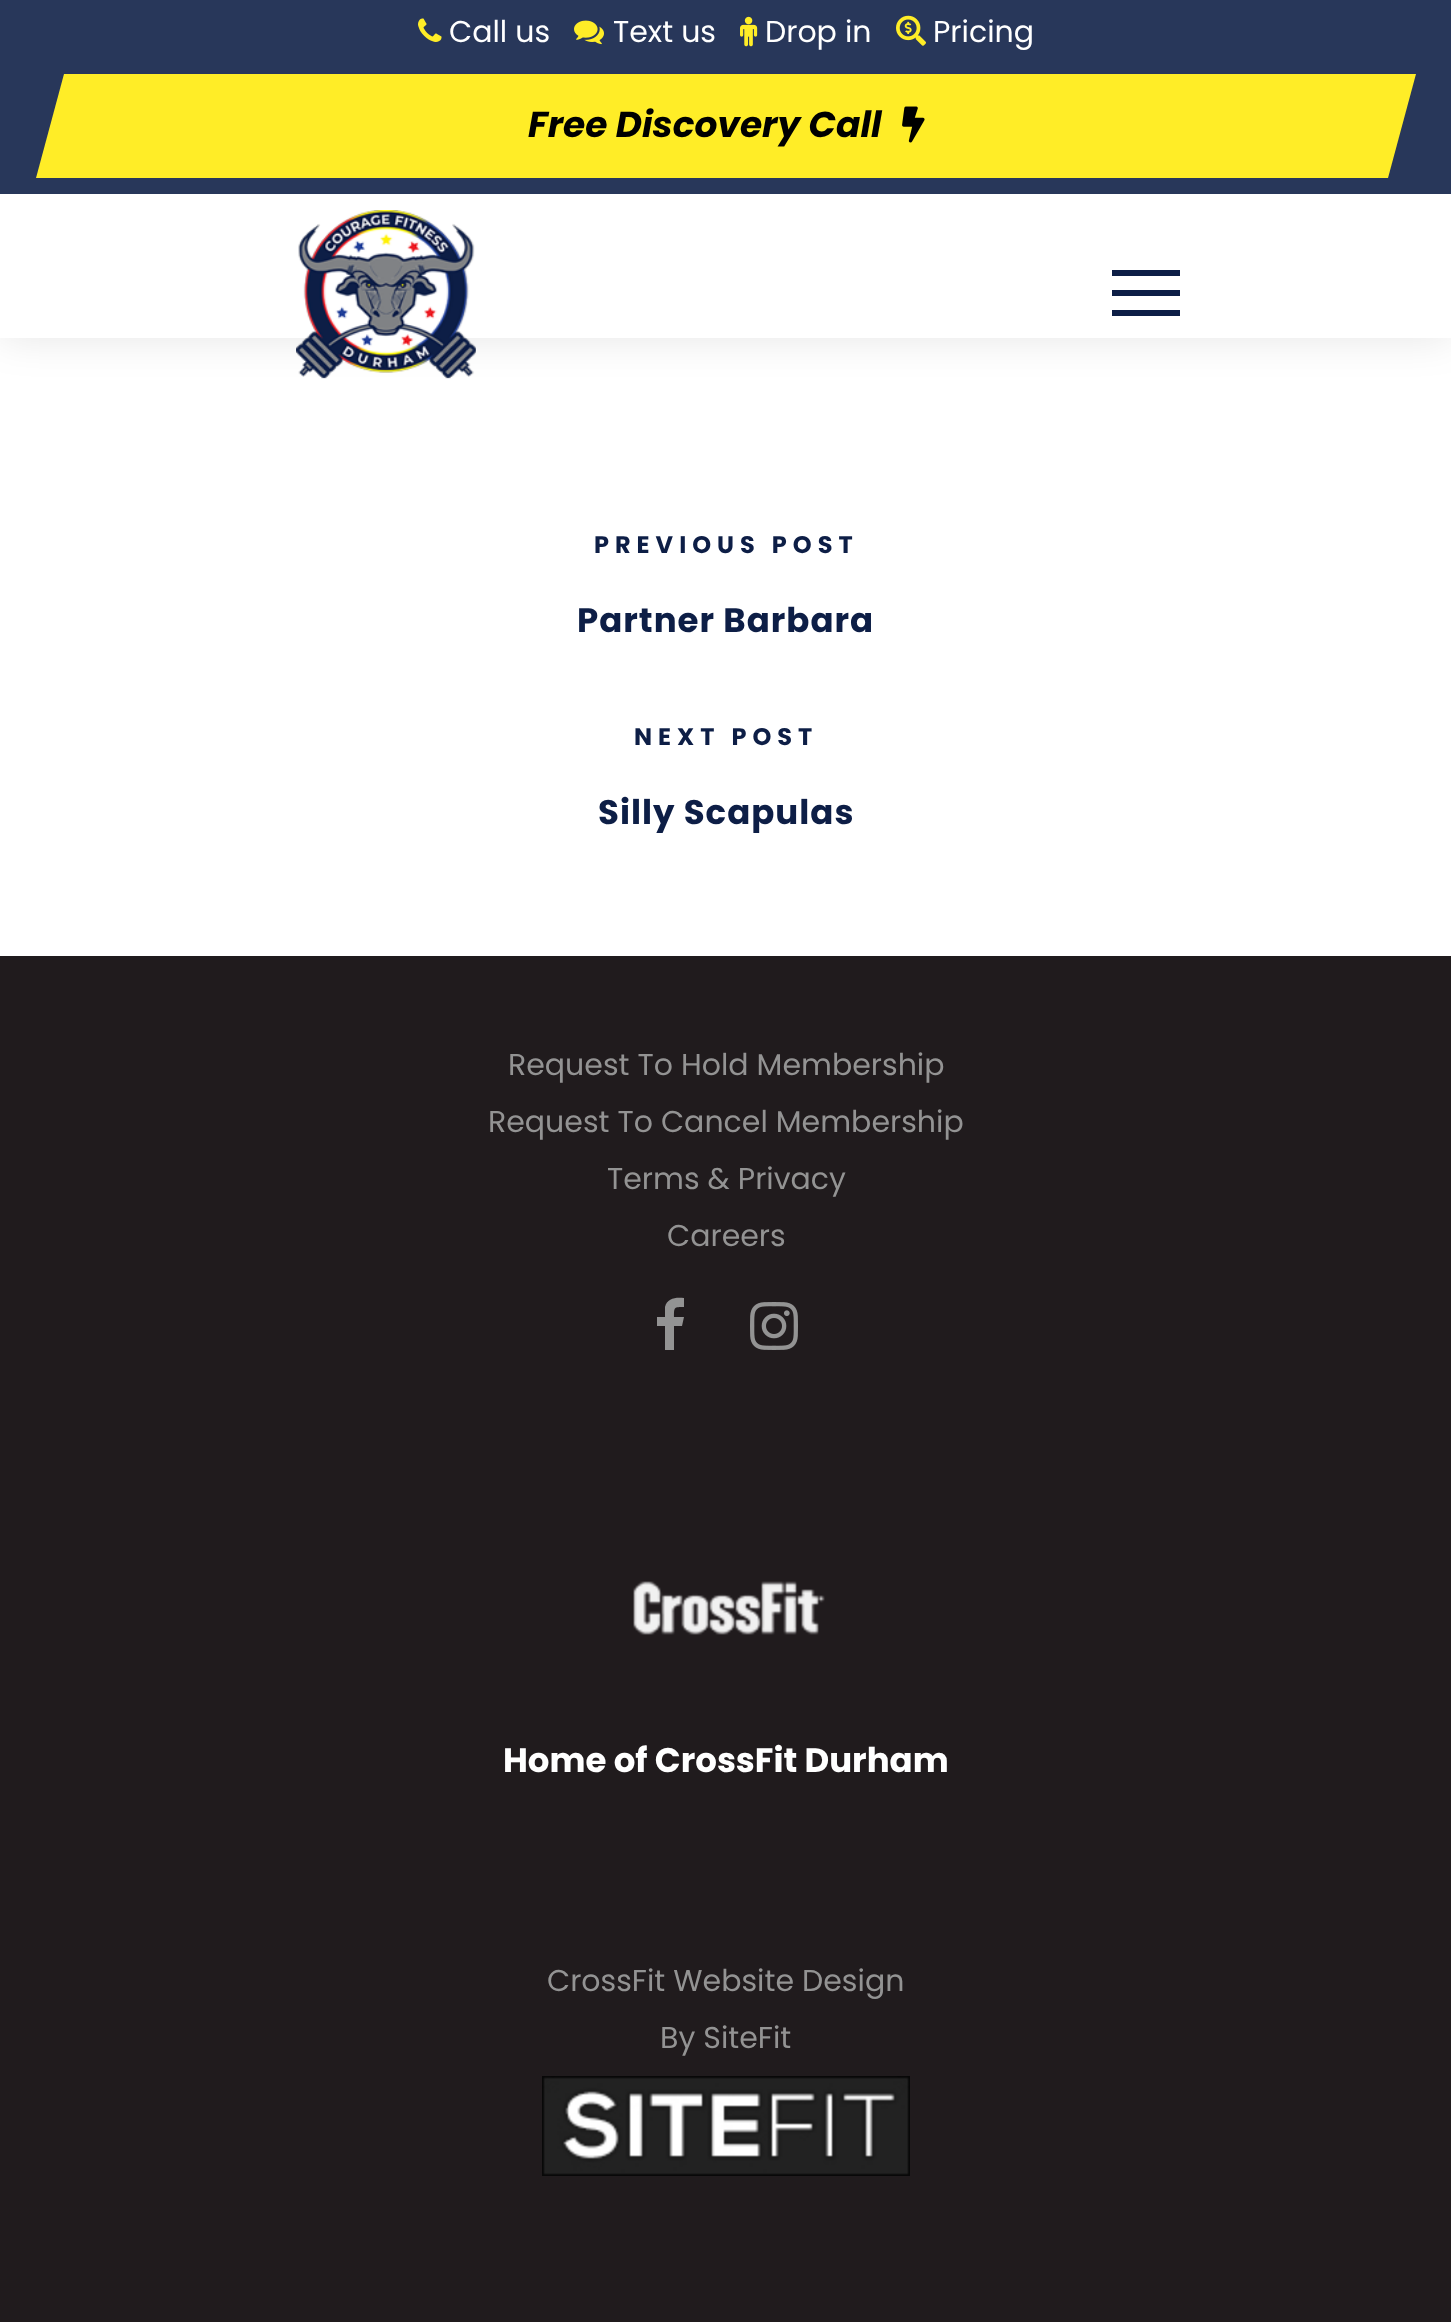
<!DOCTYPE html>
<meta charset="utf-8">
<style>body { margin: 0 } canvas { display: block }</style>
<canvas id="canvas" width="1451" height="2322"></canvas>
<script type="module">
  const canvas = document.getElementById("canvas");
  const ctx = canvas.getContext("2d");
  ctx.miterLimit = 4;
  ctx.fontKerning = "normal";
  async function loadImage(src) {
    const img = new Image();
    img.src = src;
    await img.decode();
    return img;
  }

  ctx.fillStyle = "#ffffff";
  ctx.fillRect(0, 0, 1451, 2322);
  ctx.fillStyle = "rgba(0, 0, 0, 0.1)";
  ctx.filter = "blur(20px)";
  ctx.beginPath();
  ctx.rect(0, 0, 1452, 338);
  ctx.fill();
  ctx.filter = "none";
  ctx.fillStyle = "#ffffff";
  ctx.fillRect(0, 194, 1451, 144);
  ctx.drawImage(await loadImage("img1.png"), 296, 210, 180, 169);
  ctx.fillStyle = "#0d1e46";
  ctx.fillRect(1112, 270, 68, 6);
  ctx.fillRect(1112, 290, 68, 6);
  ctx.fillRect(1112, 310, 68, 6);
  ctx.fillStyle = "#28375a";
  ctx.fillRect(0, 0, 1451, 194);
  ctx.drawImage(await loadImage("img2.png"), 418, 18, 24, 24);
  ctx.font = "30px Poppins";
  ctx.fillStyle = "#ffffff";
  ctx.fillText("Call us", 449, 42);
  ctx.drawImage(await loadImage("img3.png"), 574, 20, 30, 25);
  ctx.fillText("Text us", 613, 42);
  ctx.drawImage(await loadImage("img4.png"), 740, 16, 18, 31);
  ctx.fillText("Drop in", 765, 42);
  ctx.drawImage(await loadImage("img5.png"), 896, 15, 30, 31);
  ctx.fillText("Pricing", 933, 42);
  ctx.fillStyle = "#ffed27";
  ctx.beginPath();
  ctx.moveTo(64, 74);
  ctx.lineTo(36, 178);
  ctx.lineTo(1388, 178);
  ctx.lineTo(1416, 74);
  ctx.closePath();
  ctx.fill();
  ctx.font = "italic bold 36px Poppins";
  ctx.fillStyle = "#000000";
  ctx.fillText("Free Discovery Call", 528, 137);
  ctx.drawImage(await loadImage("img6.png"), 902, 106, 23, 37);
  ctx.letterSpacing = "6px";
  ctx.font = "bold 24px Poppins";
  ctx.fillStyle = "#0d1e46";
  ctx.fillText("PREVIOUS POST", 594, 553);
  ctx.letterSpacing = "1px";
  ctx.font = "bold 34px Poppins";
  ctx.fillText("Partner Barbara", 577, 632);
  ctx.letterSpacing = "6px";
  ctx.font = "bold 24px Poppins";
  ctx.fillText("NEXT POST", 634, 745);
  ctx.letterSpacing = "1px";
  ctx.font = "bold 34px Poppins";
  ctx.fillText("Silly Scapulas", 598, 824);
  ctx.fillStyle = "#201b1d";
  ctx.fillRect(0, 956, 1451, 1366);
  ctx.letterSpacing = "0px";
  ctx.font = "30px Poppins";
  ctx.fillStyle = "#939393";
  ctx.fillText("Request To Hold Membership", 508, 1075);
  ctx.fillText("Request To Cancel Membership", 488, 1132);
  ctx.fillText("Terms & Privacy", 607, 1189);
  ctx.fillText("Careers", 667, 1246);
  ctx.beginPath();
  ctx.moveTo(684, 1298);
  ctx.lineTo(684, 1307);
  ctx.bezierCurveTo(674, 1307, 674, 1307, 674, 1317);
  ctx.lineTo(684, 1317);
  ctx.lineTo(682, 1326);
  ctx.lineTo(674, 1326);
  ctx.lineTo(674, 1350);
  ctx.lineTo(665, 1350);
  ctx.lineTo(665, 1326);
  ctx.lineTo(657, 1326);
  ctx.lineTo(657, 1317);
  ctx.lineTo(665, 1317);
  ctx.lineTo(665, 1307);
  ctx.bezierCurveTo(667, 1298, 676, 1297, 684, 1298);
  ctx.closePath();
  ctx.fill();
  ctx.drawImage(await loadImage("img7.png"), 750, 1302, 48, 48);
  ctx.drawImage(await loadImage("img8.png"), 633, 1581, 192, 54);
  ctx.font = "bold 34px Poppins";
  ctx.fillStyle = "#ffffff";
  ctx.fillText("Home of CrossFit Durham", 503, 1772);
  ctx.font = "30px Poppins";
  ctx.fillStyle = "#939393";
  ctx.fillText("CrossFit Website Design", 547, 1991);
  ctx.fillText("By SiteFit", 660, 2048);
  ctx.drawImage(await loadImage("img9.png"), 542, 2076, 368, 100);
</script>
